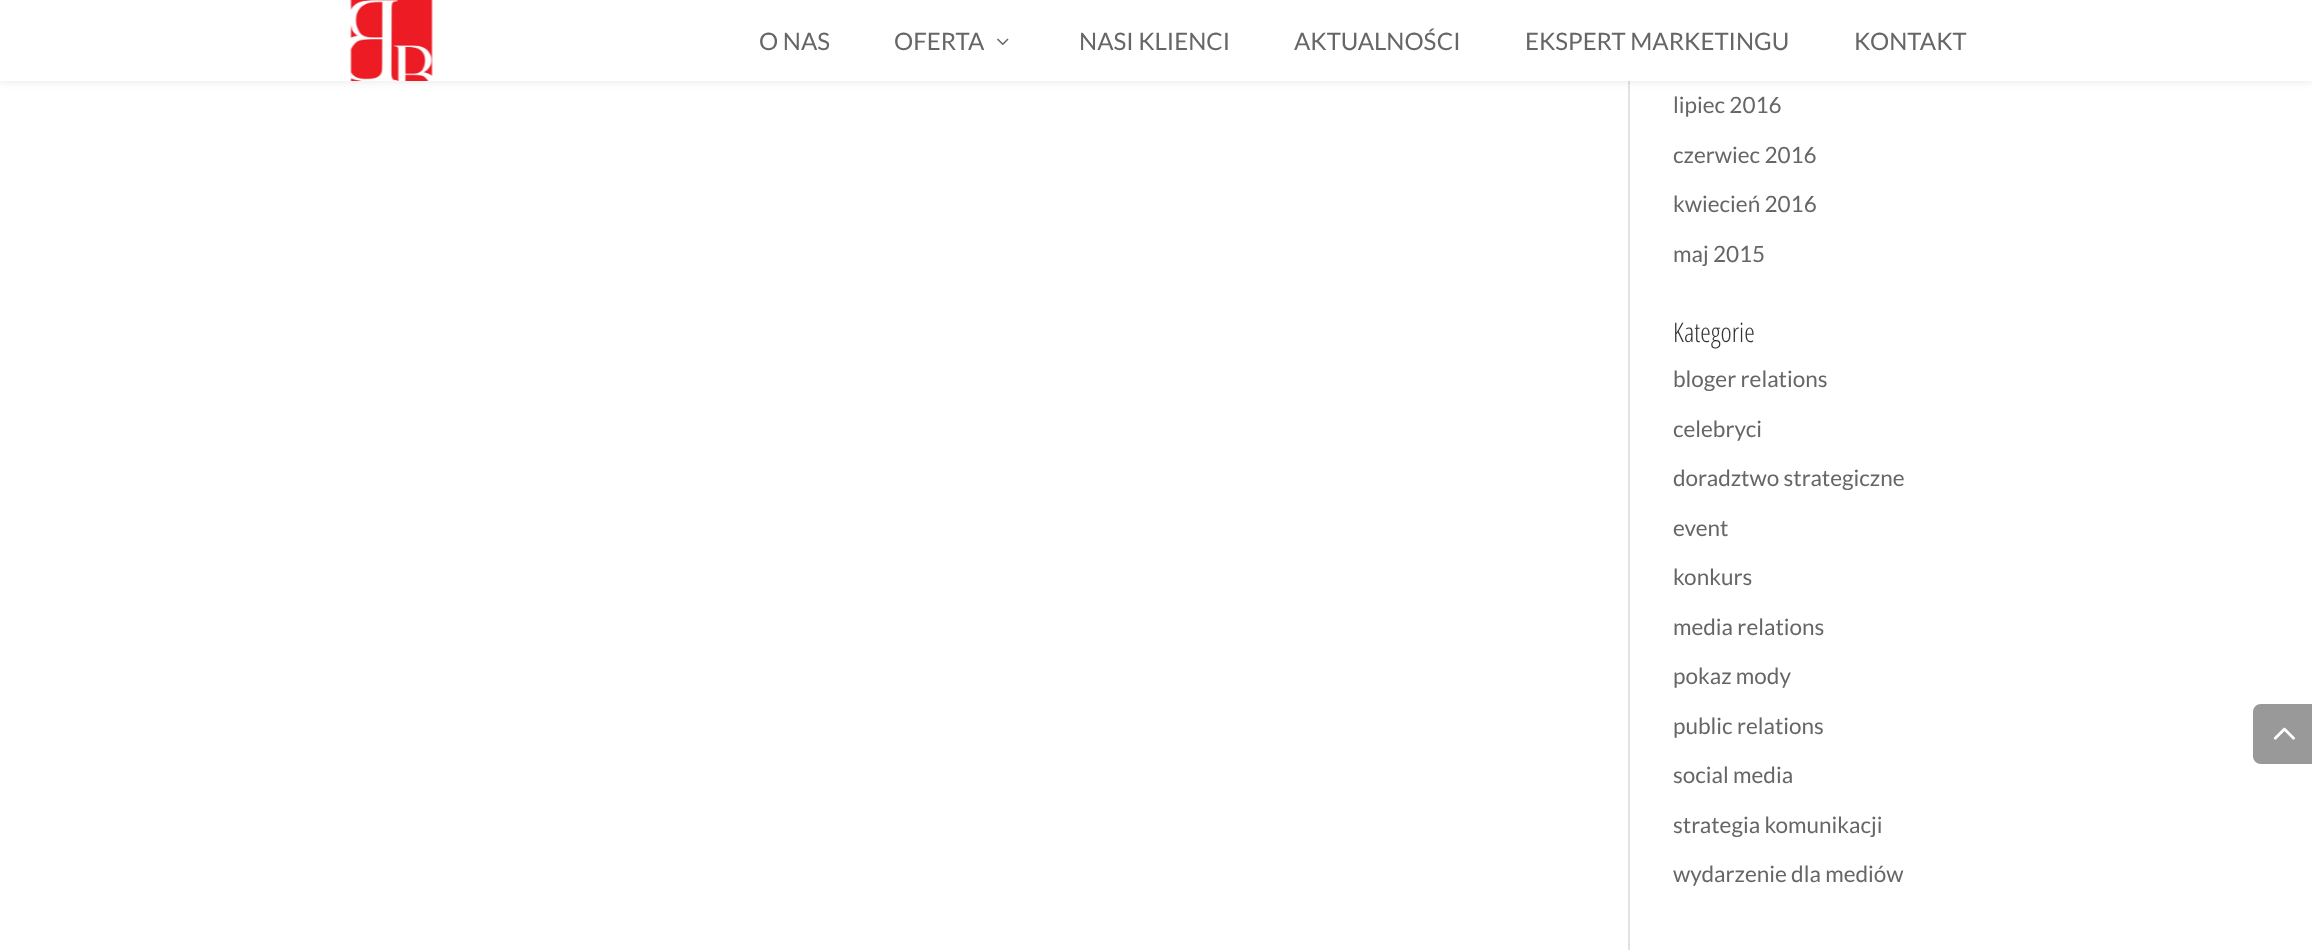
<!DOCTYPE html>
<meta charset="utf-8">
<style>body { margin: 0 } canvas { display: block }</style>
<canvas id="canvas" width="2312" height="950"></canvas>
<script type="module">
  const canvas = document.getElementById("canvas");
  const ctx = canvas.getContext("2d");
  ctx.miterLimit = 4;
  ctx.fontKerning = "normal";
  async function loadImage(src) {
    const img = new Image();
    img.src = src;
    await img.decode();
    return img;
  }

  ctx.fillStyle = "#ffffff";
  ctx.fillRect(0, 0, 2312, 950);
  ctx.fillStyle = "#e2e2e2";
  ctx.fillRect(1628, 81, 2, 869);
  ctx.fillStyle = "rgba(0, 0, 0, 0.1)";
  ctx.filter = "blur(5px)";
  ctx.beginPath();
  ctx.rect(0, 0, 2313, 81);
  ctx.fill();
  ctx.filter = "none";
  ctx.fillStyle = "#ffffff";
  ctx.fillRect(0, 0, 2312, 81);
  ctx.drawImage(await loadImage("img1.png"), 350, 0, 83, 81);
  ctx.font = "24px Lato";
  ctx.fillStyle = "#666666";
  ctx.fillText("O NAS", 759, 50);
  ctx.fillText("OFERTA", 894, 50);
  ctx.drawImage(await loadImage("img2.png"), 997, 38, 12, 7);
  ctx.fillText("NASI KLIENCI", 1079, 50);
  ctx.fillText("AKTUALNOŚCI", 1294, 50);
  ctx.fillText("EKSPERT MARKETINGU", 1525, 50);
  ctx.fillText("KONTAKT", 1854, 50);
  ctx.font = "22.5px Lato";
  ctx.fillText("lipiec 2016", 1673, 113);
  ctx.fillText("czerwiec 2016", 1673, 163);
  ctx.fillText("kwiecień 2016", 1673, 212);
  ctx.fillText("maj 2015", 1673, 262);
  ctx.font = "300 27px Open Sans Condensed";
  ctx.fillStyle = "#333333";
  ctx.fillText("Kategorie", 1673, 342);
  ctx.font = "22.5px Lato";
  ctx.fillStyle = "#666666";
  ctx.fillText("bloger relations", 1673, 387);
  ctx.fillText("celebryci", 1673, 437);
  ctx.fillText("doradztwo strategiczne", 1673, 486);
  ctx.fillText("event", 1673, 536);
  ctx.fillText("konkurs", 1673, 585);
  ctx.fillText("media relations", 1673, 635);
  ctx.fillText("pokaz mody", 1673, 684);
  ctx.fillText("public relations", 1673, 734);
  ctx.fillText("social media", 1673, 783);
  ctx.fillText("strategia komunikacji", 1673, 833);
  ctx.fillText("wydarzenie dla mediów", 1673, 882);
  ctx.fillStyle = "#999999";
  ctx.beginPath();
  ctx.moveTo(2261, 704);
  ctx.lineTo(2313, 704);
  ctx.lineTo(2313, 764);
  ctx.lineTo(2261, 764);
  ctx.bezierCurveTo(2256.5, 764, 2253, 760.5, 2253, 756);
  ctx.lineTo(2253, 712);
  ctx.bezierCurveTo(2253, 707.5, 2256.5, 704, 2261, 704);
  ctx.closePath();
  ctx.fill();
  ctx.drawImage(await loadImage("img3.png"), 2273, 727, 22, 13);
</script>
